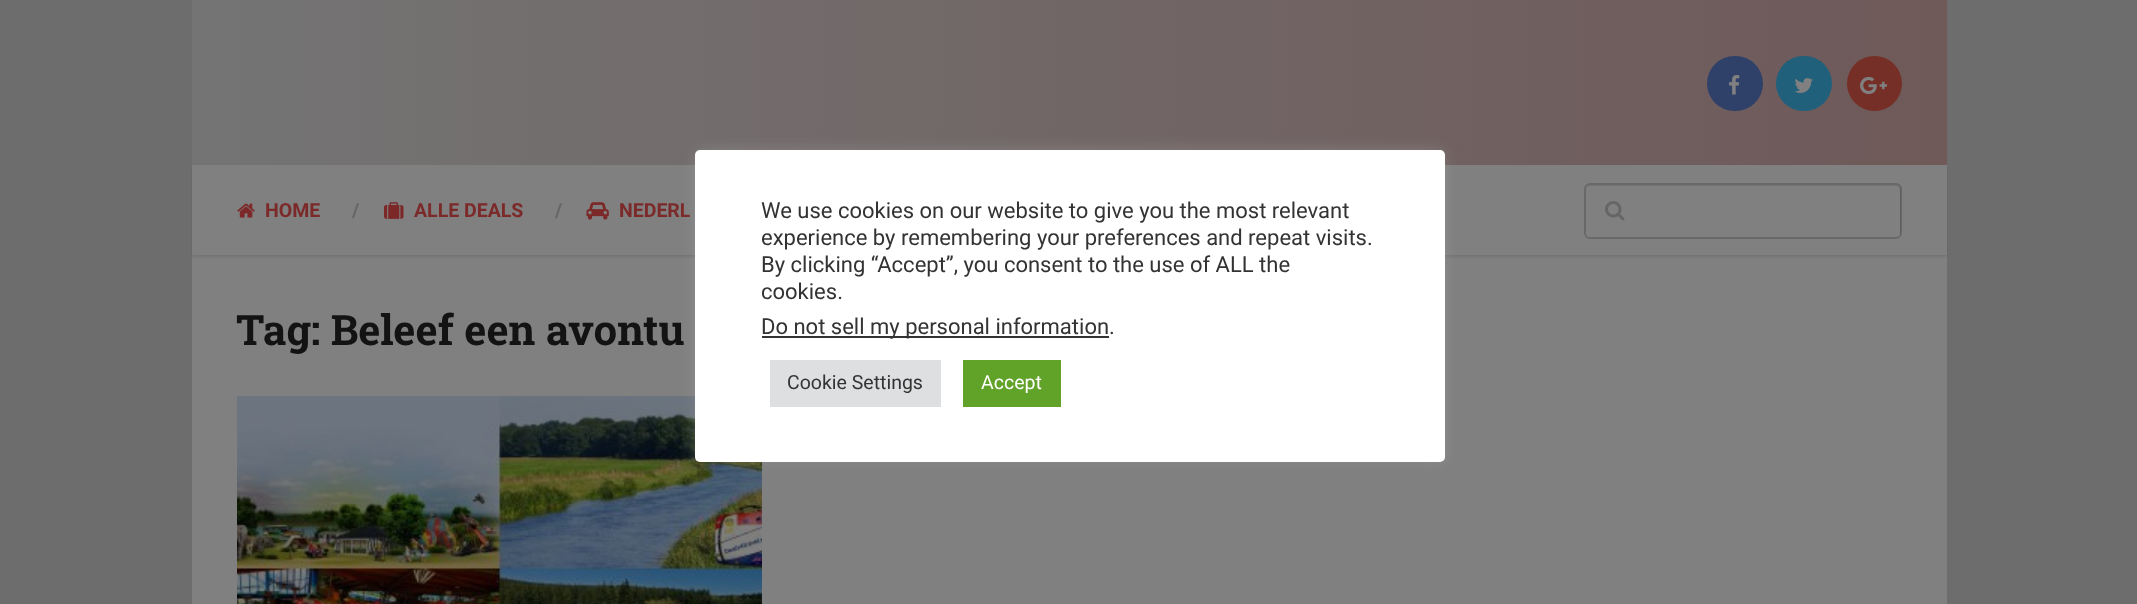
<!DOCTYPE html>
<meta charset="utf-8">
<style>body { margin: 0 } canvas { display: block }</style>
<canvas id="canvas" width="2137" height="604"></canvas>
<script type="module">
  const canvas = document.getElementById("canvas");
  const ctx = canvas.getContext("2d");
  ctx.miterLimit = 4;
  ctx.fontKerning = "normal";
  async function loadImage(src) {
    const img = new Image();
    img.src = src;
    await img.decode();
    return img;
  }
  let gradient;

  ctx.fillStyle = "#6d6d6d";
  ctx.fillRect(0, 0, 2137, 604);
  gradient = ctx.createLinearGradient(192, 83, 1947, 82);
  gradient.addColorStop(0, "#747474");
  gradient.addColorStop(1, "#6f5959");
  ctx.fillStyle = gradient;
  ctx.fillRect(192, 0, 1755, 165);
  ctx.fillStyle = "#2f4169";
  ctx.beginPath();
  ctx.roundRect(1707, 56, 56, 55, 27.5);
  ctx.fill();
  ctx.drawImage(await loadImage("img1.png"), 1729, 75, 11, 20);
  ctx.fillStyle = "#20607b";
  ctx.beginPath();
  ctx.roundRect(1776, 56, 56, 55, 27.5);
  ctx.fill();
  ctx.drawImage(await loadImage("img2.png"), 1794, 78, 19, 15);
  ctx.fillStyle = "#762f26";
  ctx.beginPath();
  ctx.arc(1874.5, 83.5, 27.5, 0, Math.PI * 2);
  ctx.fill();
  ctx.drawImage(await loadImage("img3.png"), 1860, 76, 27, 19);
  ctx.fillStyle = "#808080";
  ctx.fillRect(192, 255, 1755, 349);
  ctx.fillStyle = "rgba(0, 0, 0, 0.1)";
  ctx.filter = "blur(1px)";
  ctx.beginPath();
  ctx.rect(192, 167, 1755, 90);
  ctx.fill();
  ctx.filter = "none";
  ctx.fillStyle = "#808080";
  ctx.fillRect(192, 165, 1755, 90);
  ctx.drawImage(await loadImage("img4.png"), 237, 203, 18, 15);
  ctx.font = "bold 19.5px Roboto";
  ctx.fillStyle = "#7c2929";
  ctx.fillText("HOME", 265, 217);
  ctx.fillStyle = "#666666";
  ctx.fillText("/", 352, 217);
  ctx.drawImage(await loadImage("img5.png"), 384, 202, 20, 17);
  ctx.fillStyle = "#7c2929";
  ctx.fillText("ALLE DEALS", 414, 217);
  ctx.fillStyle = "#666666";
  ctx.fillText("/", 555, 217);
  ctx.drawImage(await loadImage("img6.png"), 586, 202, 23, 18);
  ctx.fillStyle = "#7c2929";
  ctx.fillText("NEDERL", 619, 217);
  ctx.fillStyle = "#737373";
  ctx.beginPath();
  ctx.moveTo(1590, 186);
  ctx.lineTo(1896, 186);
  ctx.bezierCurveTo(1898, 186, 1900, 188, 1900, 190);
  ctx.lineTo(1900, 235);
  ctx.bezierCurveTo(1901, 234, 1901, 233, 1901, 232);
  ctx.lineTo(1901, 190);
  ctx.bezierCurveTo(1901, 187, 1899, 185, 1896, 185);
  ctx.lineTo(1591, 185);
  ctx.bezierCurveTo(1588, 185, 1586, 187, 1586, 190);
  ctx.bezierCurveTo(1586, 188, 1588, 186, 1590, 186);
  ctx.closePath();
  ctx.fill();
  ctx.beginPath();
  ctx.roundRect(1585, 184, 316, 54, 5);
  ctx.strokeStyle = "rgba(0, 0, 0, 0.18)";
  ctx.lineWidth = 2;
  ctx.stroke();
  ctx.drawImage(await loadImage("img7.png"), 1605, 201, 20, 20);
  ctx.font = "bold 42px Roboto Slab";
  ctx.fillStyle = "#131313";
  ctx.fillText("Tag: Beleef een avontu", 236, 345);
  ctx.drawImage(await loadImage("img8.png"), 237, 396, 525, 208);
  ctx.fillStyle = "rgba(172, 171, 171, 0.3)";
  ctx.filter = "blur(7.5px)";
  ctx.beginPath();
  ctx.roundRect(695, 149, 750, 312, 5);
  ctx.fill();
  ctx.filter = "none";
  ctx.fillStyle = "#ffffff";
  ctx.beginPath();
  ctx.roundRect(695, 150, 750, 312, 5);
  ctx.fill();
  ctx.font = "22px Roboto";
  ctx.fillStyle = "#333333";
  ctx.fillText("We use cookies on our website to give you the most relevant", 761, 218);
  ctx.fillText("experience by remembering your preferences and repeat visits.", 761, 245);
  ctx.fillText("By clicking “Accept”, you consent to the use of ALL the", 761, 272);
  ctx.fillText("cookies.", 761, 299);
  ctx.fillRect(762, 336, 347, 2);
  ctx.fillText("Do not sell my personal information.", 761, 334);
  ctx.fillStyle = "#dedfe0";
  ctx.fillRect(770, 360, 171, 47);
  ctx.font = "19.5px Roboto";
  ctx.fillStyle = "#333333";
  ctx.fillText("Cookie Settings", 787, 389);
  ctx.fillStyle = "#61a229";
  ctx.fillRect(963, 360, 98, 47);
  ctx.fillStyle = "#ffffff";
  ctx.fillText("Accept", 981, 389);
</script>
